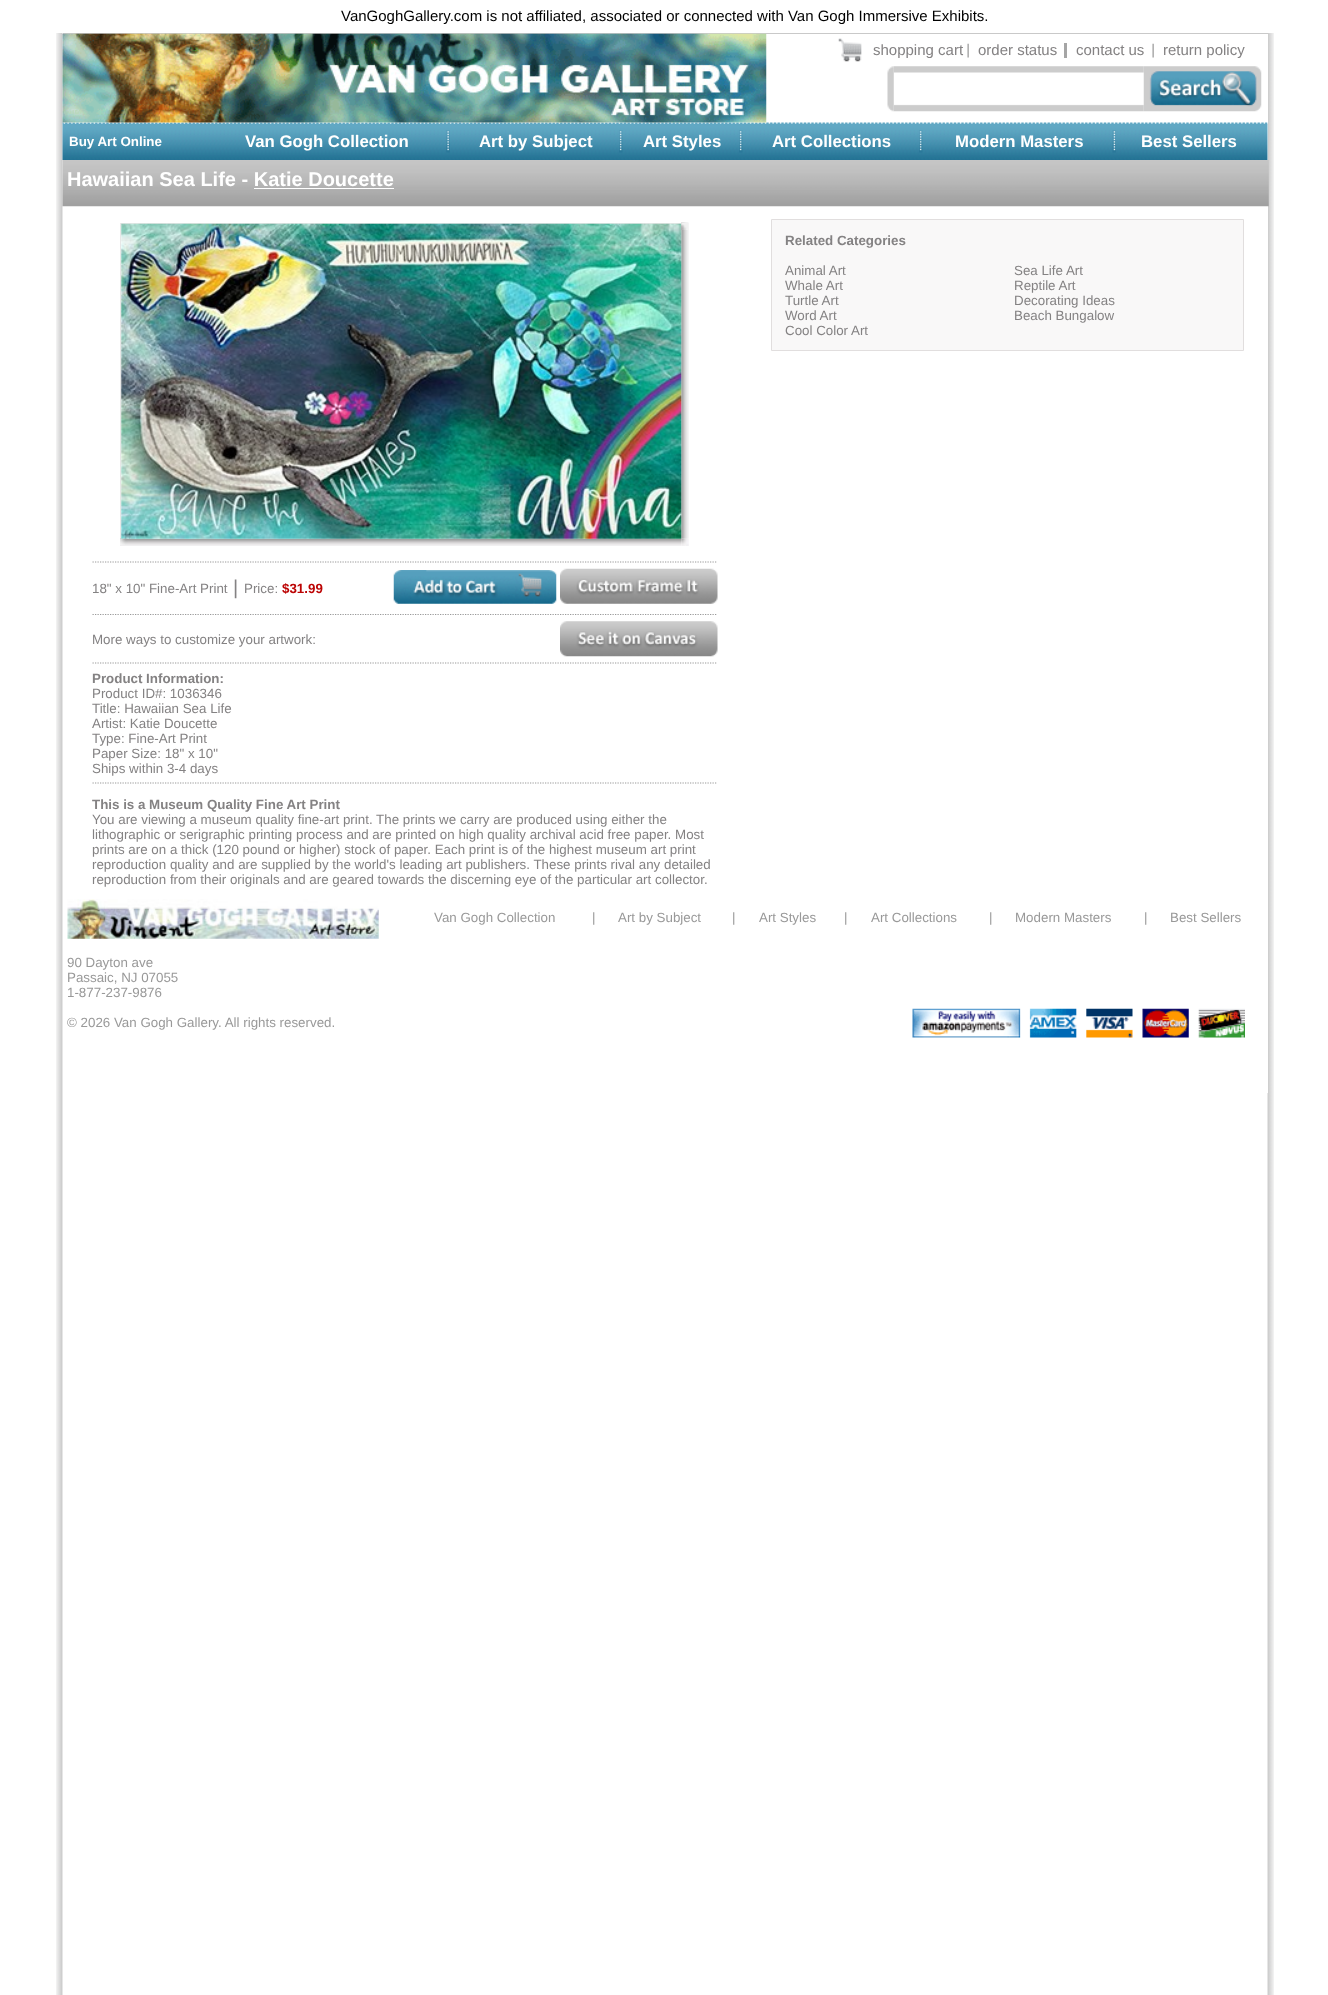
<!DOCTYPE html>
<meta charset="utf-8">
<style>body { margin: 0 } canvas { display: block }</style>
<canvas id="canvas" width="1328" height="1995"></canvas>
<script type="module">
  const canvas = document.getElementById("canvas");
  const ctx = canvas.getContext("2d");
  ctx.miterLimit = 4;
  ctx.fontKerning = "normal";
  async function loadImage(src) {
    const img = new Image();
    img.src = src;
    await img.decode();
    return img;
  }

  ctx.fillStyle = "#ffffff";
  ctx.fillRect(0, 0, 1328, 1995);
  ctx.drawImage(await loadImage("img1.png"), 56, 33, 1218, 1962);
  ctx.font = "15px Liberation Sans";
  ctx.fillStyle = "#000000";
  ctx.fillText("VanGoghGallery.com is not affiliated, associated or connected with Van Gogh Immersive Exhibits.", 341, 21);
  ctx.fillStyle = "#ffffff";
  ctx.fillRect(1267, 34, 1, 1059);
  ctx.fillStyle = "#c9c9c9";
  ctx.fillRect(63, 33, 1205, 1);
  ctx.drawImage(await loadImage("img8.png"), 62, 122, 1206, 38);
  ctx.drawImage(await loadImage("img2.png"), 62, 33, 705, 90);
  ctx.drawImage(await loadImage("img3.png"), 838, 38, 24, 24);
  ctx.fillStyle = "#848283";
  ctx.fillText("shopping cart", 873, 55);
  ctx.drawImage(await loadImage("img4.png"), 967, 43, 2, 15);
  ctx.fillText("order status", 978, 55);
  ctx.fillStyle = "#a5a5a5";
  ctx.fillRect(1064, 43, 3, 15);
  ctx.fillStyle = "#848283";
  ctx.fillText("contact us", 1076, 55);
  ctx.drawImage(await loadImage("img4.png"), 1152, 43, 2, 15);
  ctx.fillText("return policy", 1163, 55);
  ctx.drawImage(await loadImage("img6.png"), 893, 66, 251, 46);
  ctx.drawImage(await loadImage("img5.png"), 887, 66, 7, 46);
  ctx.drawImage(await loadImage("img7.png"), 1143, 66, 119, 46);
  ctx.font = "bold 13.35px Liberation Sans";
  ctx.fillStyle = "#ffffff";
  ctx.fillText("Buy Art Online", 69, 146);
  ctx.font = "bold 16.75px Liberation Sans";
  ctx.fillText("Van Gogh Collection", 245, 147);
  ctx.drawImage(await loadImage("img9.png"), 446, 130, 4, 23);
  ctx.fillText("Art by Subject", 479, 147);
  ctx.drawImage(await loadImage("img10.png"), 619, 130, 4, 23);
  ctx.fillText("Art Styles", 643, 147);
  ctx.drawImage(await loadImage("img10.png"), 739, 130, 4, 23);
  ctx.fillText("Art Collections", 772, 147);
  ctx.drawImage(await loadImage("img10.png"), 919, 130, 4, 23);
  ctx.fillText("Modern Masters", 955, 147);
  ctx.drawImage(await loadImage("img11.png"), 1112, 130, 4, 23);
  ctx.fillText("Best Sellers", 1141, 147);
  ctx.drawImage(await loadImage("img12.png"), 62, 160, 1207, 47);
  ctx.font = "bold 20px Liberation Sans";
  ctx.fillText("Hawaiian Sea Life - Katie Doucette", 67, 186);
  ctx.fillRect(254, 188, 140, 1);
  ctx.fillStyle = "#f9f8f8";
  ctx.beginPath();
  ctx.rect(771.5, 219.5, 472, 131);
  ctx.fill();
  ctx.strokeStyle = "#e1dede";
  ctx.stroke();
  ctx.font = "bold 13.35px Liberation Sans";
  ctx.fillStyle = "#848283";
  ctx.fillText("Related Categories", 785, 245);
  ctx.font = "13.35px Liberation Sans";
  ctx.fillText("Animal Art", 785, 275);
  ctx.fillText("Sea Life Art", 1014, 275);
  ctx.fillText("Whale Art", 785, 290);
  ctx.fillText("Reptile Art", 1014, 290);
  ctx.fillText("Turtle Art", 785, 305);
  ctx.fillText("Decorating Ideas", 1014, 305);
  ctx.fillText("Word Art", 785, 320);
  ctx.fillText("Beach Bungalow", 1014, 320);
  ctx.fillText("Cool Color Art", 785, 335);
  ctx.fillStyle = "#e7e7e7";
  ctx.fillRect(120, 223, 561, 1);
  ctx.fillRect(120, 223, 1, 316);
  ctx.drawImage(await loadImage("img14.png"), 681, 222, 8, 317);
  ctx.drawImage(await loadImage("img16.png"), 120, 538, 562, 8);
  ctx.drawImage(await loadImage("img13.png"), 121, 223, 561, 316);
  ctx.drawImage(await loadImage("img15.png"), 681, 222, 7, 8);
  ctx.drawImage(await loadImage("img17.png"), 120, 538, 8, 7);
  ctx.drawImage(await loadImage("img18.png"), 681, 539, 8, 7);
  ctx.beginPath();
  ctx.moveTo(92.5, 562);
  ctx.lineTo(717.5, 562);
  ctx.strokeStyle = "#999999";
  ctx.lineWidth = 1.2;
  ctx.setLineDash([1.25, 1.25]);
  ctx.stroke();
  ctx.fillStyle = "#848283";
  ctx.fillText("18\" x 10\" Fine-Art Print", 92, 593);
  ctx.font = "20px Liberation Sans";
  ctx.fillText("|", 233, 594);
  ctx.font = "13.35px Liberation Sans";
  ctx.fillText("Price:", 244, 593);
  ctx.font = "bold 13.35px Liberation Sans";
  ctx.fillStyle = "#bc0404";
  ctx.fillText("$31.99", 282, 593);
  ctx.drawImage(await loadImage("img19.png"), 393, 570, 164, 34);
  ctx.drawImage(await loadImage("img20.png"), 560, 568, 158, 36);
  ctx.beginPath();
  ctx.moveTo(92.5, 614.5);
  ctx.lineTo(717.5, 614.5);
  ctx.stroke();
  ctx.font = "13.35px Liberation Sans";
  ctx.fillStyle = "#848283";
  ctx.fillText("More ways to customize your artwork:", 92, 644);
  ctx.drawImage(await loadImage("img21.png"), 560, 621, 158, 36);
  ctx.beginPath();
  ctx.moveTo(92.5, 663);
  ctx.lineTo(717.5, 663);
  ctx.stroke();
  ctx.font = "bold 13.35px Liberation Sans";
  ctx.fillText("Product Information:", 92, 683);
  ctx.font = "13.35px Liberation Sans";
  ctx.fillText("Product ID#: 1036346", 92, 698);
  ctx.fillText("Title: Hawaiian Sea Life", 92, 713);
  ctx.fillText("Artist: Katie Doucette", 92, 728);
  ctx.fillText("Type: Fine-Art Print", 92, 743);
  ctx.fillText("Paper Size: 18\" x 10\"", 92, 758);
  ctx.fillText("Ships within 3-4 days", 92, 773);
  ctx.beginPath();
  ctx.moveTo(92.5, 783);
  ctx.lineTo(717.5, 783);
  ctx.stroke();
  ctx.font = "bold 13.35px Liberation Sans";
  ctx.fillText("This is a Museum Quality Fine Art Print", 92, 809);
  ctx.font = "13.35px Liberation Sans";
  ctx.fillText("You are viewing a museum quality fine-art print. The prints we carry are produced using either the", 92, 824);
  ctx.fillText("lithographic or serigraphic printing process and are printed on high quality archival acid free paper. Most", 92, 839);
  ctx.fillText("prints are on a thick (120 pound or higher) stock of paper. Each print is of the highest museum art print", 92, 854);
  ctx.fillText("reproduction quality and are supplied by the world's leading art publishers. These prints rival any detailed", 92, 869);
  ctx.fillText("reproduction from their originals and are geared towards the discerning eye of the particular art collector.", 92, 884);
  ctx.fillStyle = "#999999";
  ctx.fillText("Van Gogh Collection", 434, 922);
  ctx.fillText("|", 592, 922);
  ctx.fillText("Art by Subject", 618, 922);
  ctx.fillText("|", 732, 922);
  ctx.fillText("Art Styles", 759, 922);
  ctx.fillText("|", 844, 922);
  ctx.fillText("Art Collections", 871, 922);
  ctx.fillText("|", 989, 922);
  ctx.fillText("Modern Masters", 1015, 922);
  ctx.fillText("|", 1144, 922);
  ctx.fillText("Best Sellers", 1170, 922);
  ctx.drawImage(await loadImage("img22.png"), 912, 1008, 333, 30);
  ctx.drawImage(await loadImage("img23.png"), 67, 899, 312, 40);
  ctx.fillText("90 Dayton ave", 67, 967);
  ctx.fillText("Passaic, NJ 07055", 67, 982);
  ctx.fillText("1-877-237-9876", 67, 997);
  ctx.fillText("© 2026 Van Gogh Gallery. All rights reserved.", 67, 1027);
</script>
